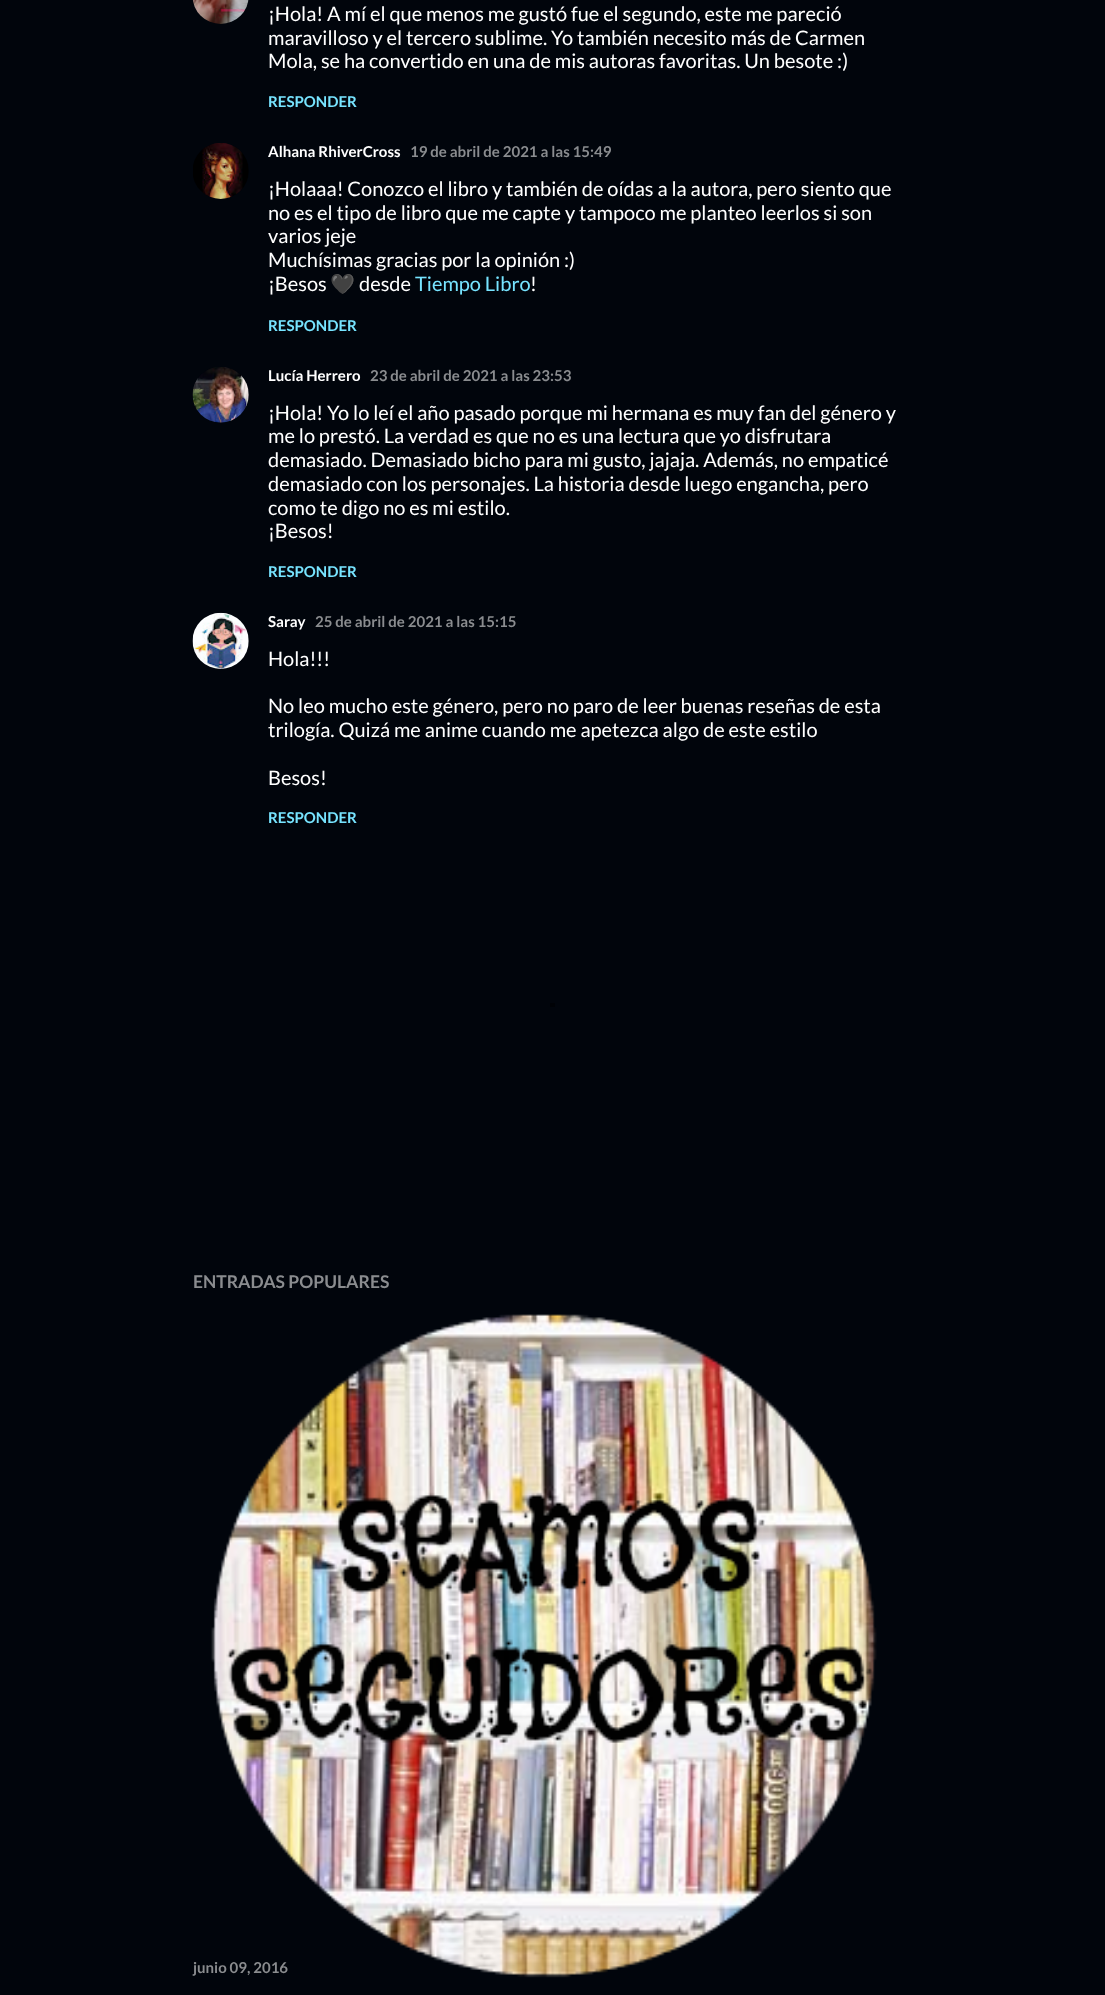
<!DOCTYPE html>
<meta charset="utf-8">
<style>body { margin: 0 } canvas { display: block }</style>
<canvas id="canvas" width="1105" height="1995"></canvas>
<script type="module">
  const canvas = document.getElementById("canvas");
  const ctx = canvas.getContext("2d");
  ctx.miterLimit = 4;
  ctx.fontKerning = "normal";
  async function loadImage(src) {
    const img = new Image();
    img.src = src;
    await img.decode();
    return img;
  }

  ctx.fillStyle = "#01050c";
  ctx.fillRect(0, 0, 1105, 1995);
  ctx.drawImage(await loadImage("img1.png"), 192, 0, 57, 24);
  ctx.font = "20px Lato";
  ctx.fillStyle = "#ffffff";
  ctx.fillText("¡Hola! A mí el que menos me gustó fue el segundo, este me pareció", 268, 21);
  ctx.fillText("maravilloso y el tercero sublime. Yo también necesito más de Carmen", 268, 45);
  ctx.fillText("Mola, se ha convertido en una de mis autoras favoritas. Un besote :)", 268, 68);
  ctx.font = "bold 15px Lato";
  ctx.fillStyle = "#77e4ff";
  ctx.fillText("RESPONDER", 268, 107);
  ctx.drawImage(await loadImage("img2.png"), 193, 143, 56, 56);
  ctx.fillStyle = "#ffffff";
  ctx.fillText("Alhana RhiverCross", 268, 157);
  ctx.fillStyle = "#8a8c8f";
  ctx.fillText("19 de abril de 2021 a las 15:49", 410, 157);
  ctx.font = "20px Lato";
  ctx.fillStyle = "#ffffff";
  ctx.fillText("¡Holaaa! Conozco el libro y también de oídas a la autora, pero siento que", 268, 196);
  ctx.fillText("no es el tipo de libro que me capte y tampoco me planteo leerlos si son", 268, 220);
  ctx.fillText("varios jeje", 268, 243);
  ctx.fillText("Muchísimas gracias por la opinión :)", 268, 267);
  ctx.fillText("¡Besos", 268, 291);
  ctx.font = "20px Noto Color Emoji";
  ctx.fillText("🖤", 330, 291);
  ctx.font = "20px Lato";
  ctx.fillText("desde", 359, 291);
  ctx.fillStyle = "#77e4ff";
  ctx.fillText("Tiempo Libro", 415, 291);
  ctx.fillStyle = "#ffffff";
  ctx.fillText("!", 530, 291);
  ctx.font = "bold 15px Lato";
  ctx.fillStyle = "#77e4ff";
  ctx.fillText("RESPONDER", 268, 331);
  ctx.drawImage(await loadImage("img3.png"), 192, 367, 57, 56);
  ctx.fillStyle = "#ffffff";
  ctx.fillText("Lucía Herrero", 268, 381);
  ctx.fillStyle = "#8a8c8f";
  ctx.fillText("23 de abril de 2021 a las 23:53", 370, 381);
  ctx.font = "20px Lato";
  ctx.fillStyle = "#ffffff";
  ctx.fillText("¡Hola! Yo lo leí el año pasado porque mi hermana es muy fan del género y", 268, 420);
  ctx.fillText("me lo prestó. La verdad es que no es una lectura que yo disfrutara", 268, 443);
  ctx.fillText("demasiado. Demasiado bicho para mi gusto, jajaja. Además, no empaticé", 268, 467);
  ctx.fillText("demasiado con los personajes. La historia desde luego engancha, pero", 268, 491);
  ctx.fillText("como te digo no es mi estilo.", 268, 515);
  ctx.fillText("¡Besos!", 268, 538);
  ctx.font = "bold 15px Lato";
  ctx.fillStyle = "#77e4ff";
  ctx.fillText("RESPONDER", 268, 577);
  ctx.drawImage(await loadImage("img4.png"), 192, 612, 57, 57);
  ctx.fillStyle = "#ffffff";
  ctx.fillText("Saray", 268, 627);
  ctx.fillStyle = "#8a8c8f";
  ctx.fillText("25 de abril de 2021 a las 15:15", 315, 627);
  ctx.font = "20px Lato";
  ctx.fillStyle = "#ffffff";
  ctx.fillText("Hola!!!", 268, 666);
  ctx.fillText("No leo mucho este género, pero no paro de leer buenas reseñas de esta", 268, 713);
  ctx.fillText("trilogía. Quizá me anime cuando me apetezca algo de este estilo", 268, 737);
  ctx.fillText("Besos!", 268, 785);
  ctx.font = "bold 15px Lato";
  ctx.fillStyle = "#77e4ff";
  ctx.fillText("RESPONDER", 268, 823);
  ctx.font = "bold 17.5px Lato";
  ctx.fillStyle = "#8a8c8f";
  ctx.fillText("ENTRADAS POPULARES", 193, 1288);
  ctx.drawImage(await loadImage("img5.png"), 211, 1314, 666, 664);
  ctx.font = "bold 15px Lato";
  ctx.fillText("junio 09, 2016", 193, 1973);
  ctx.fillStyle = "#000206";
  ctx.fillRect(550, 1003, 5, 4);
</script>
